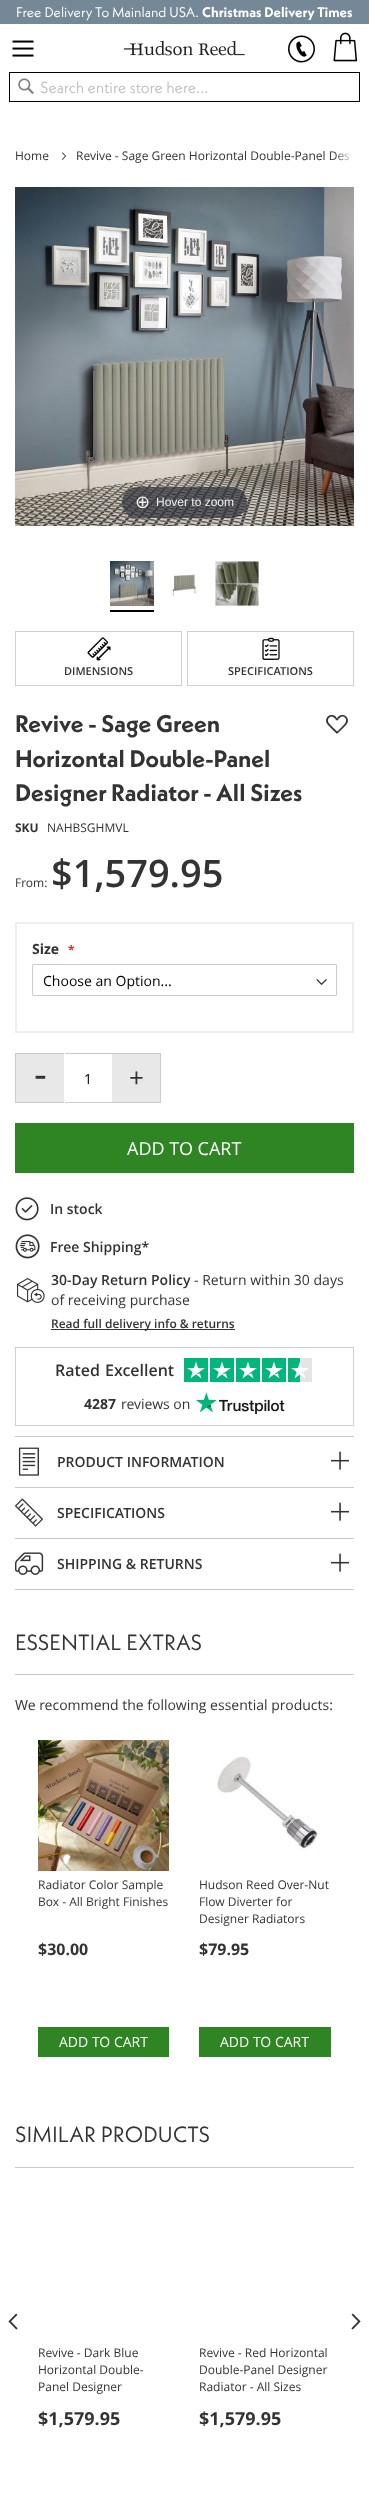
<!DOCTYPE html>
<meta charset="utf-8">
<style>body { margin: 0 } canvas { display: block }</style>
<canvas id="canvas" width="369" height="2496"></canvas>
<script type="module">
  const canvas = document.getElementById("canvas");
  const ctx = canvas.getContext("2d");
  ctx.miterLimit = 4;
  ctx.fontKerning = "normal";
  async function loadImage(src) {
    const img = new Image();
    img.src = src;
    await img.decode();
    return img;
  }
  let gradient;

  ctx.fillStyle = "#ffffff";
  ctx.fillRect(0, 0, 369, 2496);
  ctx.fillStyle = "#758897";
  ctx.fillRect(0, 0, 369, 24);
  ctx.font = "14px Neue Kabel";
  ctx.fillStyle = "#ffffff";
  ctx.fillText("Free Delivery To Mainland USA.", 16, 17);
  ctx.font = "bold 14px Neue Kabel";
  ctx.fillText("Christmas Delivery Times", 202, 17);
  ctx.drawImage(await loadImage("img1.png"), 12, 40, 22, 17);
  ctx.drawImage(await loadImage("img2.png"), 123, 40, 122, 16);
  ctx.drawImage(await loadImage("img3.png"), 288, 35, 27, 28);
  ctx.drawImage(await loadImage("img4.png"), 333, 32, 25, 30);
  ctx.strokeStyle = "#000000";
  ctx.strokeRect(9.5, 72.5, 350, 29);
  ctx.drawImage(await loadImage("img5.png"), 18, 78, 16, 16);
  ctx.font = "16px Neue Kabel";
  ctx.fillStyle = "#c2c2c2";
  ctx.fillText("Search entire store here...", 40, 93);
  ctx.font = "12px Open Sans";
  ctx.fillStyle = "#333333";
  ctx.fillText("Home", 15, 160);
  ctx.drawImage(await loadImage("img6.png"), 61, 152, 6, 8);
  ctx.fillText("Revive - Sage Green Horizontal Double-Panel Des", 76, 160);
  gradient = ctx.createLinearGradient(334, 157, 354, 157);
  gradient.addColorStop(0, "rgba(255, 255, 255, 0)");
  gradient.addColorStop(1, "#ffffff");
  ctx.fillStyle = gradient;
  ctx.fillRect(334, 152, 16, 9);
  ctx.drawImage(await loadImage("img7.png"), 15, 187, 339, 339);
  ctx.fillStyle = "rgba(49, 51, 61, 0.7)";
  ctx.beginPath();
  ctx.roundRect(122, 487, 125, 31, 15.5);
  ctx.fill();
  ctx.font = "18px DejaVu Sans";
  ctx.fillStyle = "#eeeeee";
  ctx.fillText("⊕", 135, 508);
  ctx.font = "12px Liberation Sans";
  ctx.fillText("Hover to zoom", 156, 506);
  ctx.fillStyle = "#000000";
  ctx.fillRect(110, 610, 44, 2);
  ctx.drawImage(await loadImage("img8.png"), 110, 561, 44, 45);
  ctx.drawImage(await loadImage("img9.png"), 170, 573, 28, 24);
  ctx.drawImage(await loadImage("img10.png"), 215, 561, 44, 45);
  ctx.strokeStyle = "#cfcfcf";
  ctx.strokeRect(15.5, 631.5, 166, 54);
  ctx.drawImage(await loadImage("img11.png"), 87, 637, 24, 24);
  ctx.font = "600 11px Open Sans";
  ctx.fillStyle = "#333333";
  ctx.fillText("DIMENSIONS", 64, 675);
  ctx.strokeRect(187.5, 631.5, 166, 54);
  ctx.drawImage(await loadImage("img12.png"), 262, 637, 18, 23);
  ctx.fillText("SPECIFICATIONS", 228, 675);
  ctx.font = "bold 24px Neue Kabel";
  ctx.fillText("Revive - Sage Green", 15, 732);
  ctx.fillText("Horizontal Double-Panel", 15, 767);
  ctx.fillText("Designer Radiator - All Sizes", 15, 801);
  ctx.drawImage(await loadImage("img13.png"), 326, 714, 22, 20);
  ctx.font = "bold 12px Open Sans";
  ctx.fillText("SKU", 15, 832);
  ctx.font = "12px Open Sans";
  ctx.fillText("NAHBSGHMVL", 47, 832);
  ctx.fillText("From:", 15, 887);
  ctx.font = "600 38px Open Sans";
  ctx.fillText("$1,579.95", 51, 887);
  ctx.strokeStyle = "#eeeeee";
  ctx.lineWidth = 2;
  ctx.strokeRect(16, 923, 337, 109);
  ctx.font = "bold 14px Open Sans";
  ctx.fillText("Size", 32, 954);
  ctx.font = "bold 12px Open Sans";
  ctx.fillStyle = "#e02b27";
  ctx.fillText("*", 68, 954);
  ctx.drawImage(await loadImage("img14.png"), 316, 979, 11, 6);
  ctx.beginPath();
  ctx.roundRect(32.5, 964.5, 304, 31, 0.5);
  ctx.strokeStyle = "#cccccc";
  ctx.lineWidth = 1;
  ctx.stroke();
  ctx.font = "14px Open Sans";
  ctx.fillStyle = "#000000";
  ctx.fillText("Choose an Option...", 43, 986);
  ctx.fillStyle = "#e8e8e8";
  ctx.fillRect(16, 1054, 48, 48);
  ctx.fillStyle = "#cccccc";
  ctx.fillRect(15, 1053, 49, 1);
  ctx.fillRect(15, 1102, 49, 1);
  ctx.fillRect(15, 1053, 1, 50);
  ctx.font = "40px Open Sans";
  ctx.fillStyle = "#333333";
  ctx.fillText("-", 34, 1088);
  ctx.fillStyle = "#cccccc";
  ctx.fillRect(65, 1053, 96, 1);
  ctx.fillRect(65, 1102, 47, 1);
  ctx.font = "14px Open Sans";
  ctx.fillStyle = "#000000";
  ctx.fillText("1", 84, 1084);
  ctx.fillStyle = "#e8e8e8";
  ctx.fillRect(112, 1054, 48, 48);
  ctx.fillStyle = "#cccccc";
  ctx.fillRect(160, 1053, 1, 50);
  ctx.fillRect(112, 1102, 49, 1);
  ctx.font = "26px Open Sans";
  ctx.fillStyle = "#333333";
  ctx.fillText("+", 129, 1087);
  ctx.fillStyle = "#2f8523";
  ctx.fillRect(15, 1123, 339, 50);
  ctx.font = "18px Open Sans";
  ctx.fillStyle = "#ffffff";
  ctx.fillText("ADD TO CART", 127, 1155);
  ctx.drawImage(await loadImage("img15.png"), 15, 1197, 24, 24);
  ctx.font = "600 14px Open Sans";
  ctx.fillStyle = "#333333";
  ctx.fillText("In stock", 50, 1214);
  ctx.drawImage(await loadImage("img16.png"), 15, 1234, 25, 25);
  ctx.fillText("Free Shipping*", 50, 1252);
  ctx.drawImage(await loadImage("img17.png"), 17, 1278, 28, 25);
  ctx.fillText("30-Day Return Policy", 51, 1285);
  ctx.font = "14px Open Sans";
  ctx.fillText("- Return within 30 days", 194, 1285);
  ctx.fillText("of receiving purchase", 51, 1305);
  ctx.fillRect(51, 1329, 184, 1);
  ctx.font = "600 12px Open Sans";
  ctx.fillText("Read full delivery info & returns", 51, 1328);
  ctx.strokeStyle = "#cecece";
  ctx.strokeRect(15.5, 1347.5, 338, 78);
  ctx.font = "600 16px Open Sans";
  ctx.fillText("Rated", 55, 1376);
  ctx.fillText("Excellent", 105, 1376);
  ctx.fillStyle = "#00b67a";
  ctx.fillRect(184, 1358, 24, 24);
  ctx.drawImage(await loadImage("img18.png"), 187, 1361, 18, 18);
  ctx.fillRect(210, 1358, 24, 24);
  ctx.drawImage(await loadImage("img18.png"), 213, 1361, 18, 18);
  ctx.fillRect(236, 1358, 24, 24);
  ctx.drawImage(await loadImage("img18.png"), 239, 1361, 18, 18);
  ctx.fillRect(262, 1358, 24, 24);
  ctx.drawImage(await loadImage("img18.png"), 265, 1361, 18, 18);
  ctx.fillStyle = "#e5e5e5";
  ctx.fillRect(300, 1358, 12, 24);
  ctx.fillStyle = "#00b67a";
  ctx.fillRect(288, 1358, 12, 24);
  ctx.drawImage(await loadImage("img19.png"), 291, 1361, 18, 18);
  ctx.font = "bold 14px Open Sans";
  ctx.fillStyle = "#333333";
  ctx.fillText("4287", 84, 1409);
  ctx.font = "14px Open Sans";
  ctx.fillText("reviews on", 121, 1409);
  ctx.drawImage(await loadImage("img20.png"), 196, 1392, 89, 22);
  ctx.fillStyle = "#cccccc";
  ctx.fillRect(15, 1436, 339, 1);
  ctx.fillRect(15, 1487, 339, 1);
  ctx.drawImage(await loadImage("img21.png"), 18, 1447, 21, 29);
  ctx.font = "600 14px Open Sans";
  ctx.fillStyle = "#333333";
  ctx.fillText("PRODUCT INFORMATION", 57, 1467);
  ctx.drawImage(await loadImage("img22.png"), 331, 1451, 18, 19);
  ctx.fillStyle = "#cccccc";
  ctx.fillRect(15, 1538, 339, 1);
  ctx.drawImage(await loadImage("img23.png"), 15, 1498, 28, 29);
  ctx.fillStyle = "#333333";
  ctx.fillText("SPECIFICATIONS", 57, 1518);
  ctx.drawImage(await loadImage("img22.png"), 331, 1502, 18, 19);
  ctx.fillStyle = "#cccccc";
  ctx.fillRect(15, 1589, 339, 1);
  ctx.drawImage(await loadImage("img24.png"), 15, 1552, 29, 23);
  ctx.fillStyle = "#333333";
  ctx.fillText("SHIPPING & RETURNS", 57, 1569);
  ctx.drawImage(await loadImage("img22.png"), 331, 1553, 18, 19);
  ctx.fillStyle = "#cccccc";
  ctx.fillRect(15, 1674, 339, 1);
  ctx.font = "22px Neue Kabel";
  ctx.fillStyle = "#333333";
  ctx.fillText("ESSENTIAL EXTRAS", 15, 1650);
  ctx.font = "14px Open Sans";
  ctx.fillText("We recommend the following essential products:", 15, 1710);
  ctx.drawImage(await loadImage("img25.png"), 38, 1740, 131, 131);
  ctx.font = "12px Open Sans";
  ctx.fillText("Radiator Color Sample", 38, 1889);
  ctx.fillText("Box - All Bright Finishes", 38, 1906);
  ctx.font = "bold 16px Open Sans";
  ctx.fillText("$30.00", 38, 1955);
  ctx.fillStyle = "#2f8523";
  ctx.fillRect(38, 2027, 131, 30);
  ctx.font = "14px Open Sans";
  ctx.fillStyle = "#ffffff";
  ctx.fillText("ADD TO CART", 59, 2047);
  ctx.drawImage(await loadImage("img26.png"), 216, 1756, 102, 95);
  ctx.font = "12px Open Sans";
  ctx.fillStyle = "#333333";
  ctx.fillText("Hudson Reed Over-Nut", 199, 1889);
  ctx.fillText("Flow Diverter for", 199, 1906);
  ctx.fillText("Designer Radiators", 199, 1923);
  ctx.font = "bold 16px Open Sans";
  ctx.fillText("$79.95", 199, 1955);
  ctx.fillStyle = "#2f8523";
  ctx.fillRect(199, 2027, 132, 30);
  ctx.font = "14px Open Sans";
  ctx.fillStyle = "#ffffff";
  ctx.fillText("ADD TO CART", 220, 2047);
  ctx.fillStyle = "#cccccc";
  ctx.fillRect(15, 2167, 339, 1);
  ctx.font = "22px Neue Kabel";
  ctx.fillStyle = "#333333";
  ctx.fillText("SIMILAR PRODUCTS", 15, 2142);
  ctx.drawImage(await loadImage("img27.png"), 8, 2313, 10, 17);
  ctx.drawImage(await loadImage("img28.png"), 351, 2313, 10, 17);
  ctx.font = "12px Open Sans";
  ctx.fillText("Revive - Dark Blue", 38, 2357);
  ctx.fillText("Horizontal Double-", 38, 2374);
  ctx.fillText("Panel Designer", 38, 2391);
  ctx.font = "bold 18px Open Sans";
  ctx.fillText("$1,579.95", 38, 2425);
  ctx.font = "12px Open Sans";
  ctx.fillText("Revive - Red Horizontal", 199, 2357);
  ctx.fillText("Double-Panel Designer", 199, 2374);
  ctx.fillText("Radiator - All Sizes", 199, 2391);
  ctx.font = "bold 18px Open Sans";
  ctx.fillText("$1,579.95", 199, 2425);
</script>
